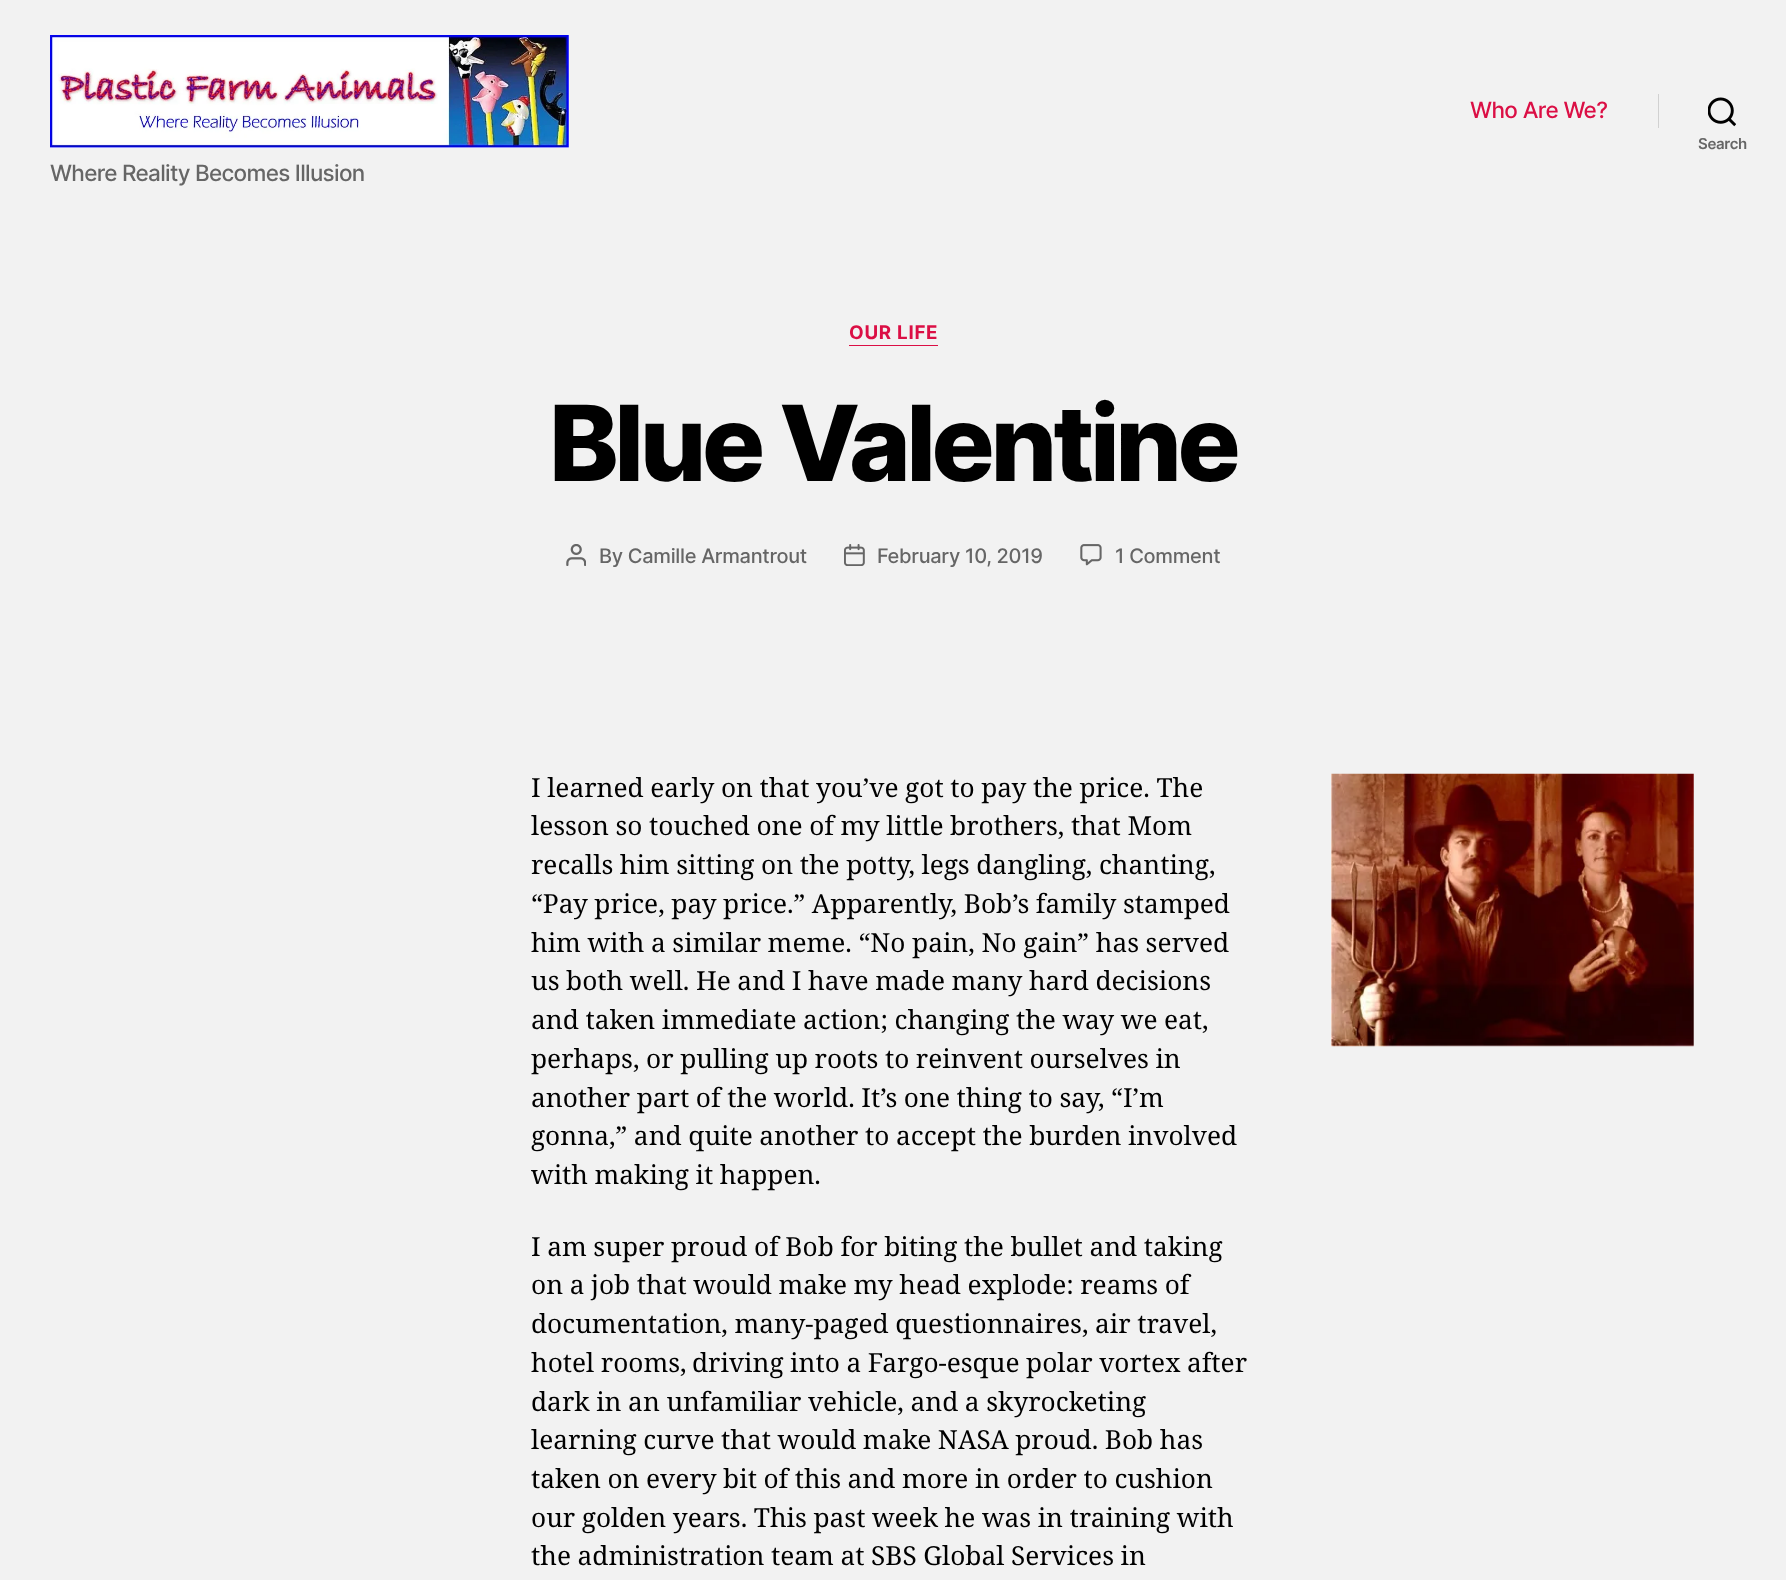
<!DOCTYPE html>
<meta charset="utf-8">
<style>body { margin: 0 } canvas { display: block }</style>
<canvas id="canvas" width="1786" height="1580"></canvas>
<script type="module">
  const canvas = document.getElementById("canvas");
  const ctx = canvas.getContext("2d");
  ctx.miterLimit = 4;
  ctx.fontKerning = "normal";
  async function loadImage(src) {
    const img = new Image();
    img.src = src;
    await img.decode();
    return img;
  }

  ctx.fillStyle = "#f2f2f2";
  ctx.fillRect(0, 0, 1786, 1580);
  ctx.letterSpacing = "-0.6px";
  ctx.font = "500 22.5px Inter";
  ctx.fillStyle = "#db0f45";
  ctx.fillText("Who Are We?", 1470, 118);
  ctx.fillStyle = "#d1d1d1";
  ctx.fillRect(1658, 94, 1, 34);
  ctx.drawImage(await loadImage("img1.png"), 1708, 97, 28, 30);
  ctx.letterSpacing = "-0.3px";
  ctx.font = "600 15px Inter";
  ctx.fillStyle = "#666666";
  ctx.fillText("Search", 1698, 149);
  ctx.drawImage(await loadImage("img2.png"), 50, 35, 519, 113);
  ctx.letterSpacing = "-0.7px";
  ctx.font = "500 22.5px Inter";
  ctx.fillText("Where Reality Becomes Illusion", 50, 181);
  ctx.fillStyle = "#db0f45";
  ctx.fillRect(849, 345, 89, 1);
  ctx.letterSpacing = "0.75px";
  ctx.font = "bold 18.75px Inter";
  ctx.fillText("OUR LIFE", 849, 339);
  ctx.letterSpacing = "-4.4px";
  ctx.font = "800 105px Inter";
  ctx.fillStyle = "#000000";
  ctx.fillText("Blue Valentine", 549, 481);
  ctx.drawImage(await loadImage("img3.png"), 566, 544, 20, 22);
  ctx.letterSpacing = "-0.3px";
  ctx.font = "500 20px Inter";
  ctx.fillStyle = "#666666";
  ctx.fillText("By Camille Armantrout", 599, 563);
  ctx.drawImage(await loadImage("img4.png"), 844, 544, 21, 22);
  ctx.fillText("February 10, 2019", 877, 563);
  ctx.drawImage(await loadImage("img5.png"), 1080, 544, 22, 22);
  ctx.fillText("1 Comment", 1115, 563);
  ctx.letterSpacing = "0px";
  ctx.wordSpacing = "-0.25px";
  ctx.font = "26.25px Noto Serif";
  ctx.fillStyle = "#000000";
  ctx.fillText("I learned early on that you’ve got to pay the price. The", 531, 797);
  ctx.drawImage(await loadImage("img6.png"), 1331, 773, 363, 274);
  ctx.fillText("lesson so touched one of my little brothers, that Mom", 531, 835);
  ctx.fillText("recalls him sitting on the potty, legs dangling, chanting,", 531, 874);
  ctx.fillText("“Pay price, pay price.” Apparently, Bob’s family stamped", 531, 913);
  ctx.fillText("him with a similar meme. “No pain, No gain” has served", 531, 952);
  ctx.fillText("us both well. He and I have made many hard decisions", 531, 990);
  ctx.fillText("and taken immediate action; changing the way we eat,", 531, 1029);
  ctx.fillText("perhaps, or pulling up roots to reinvent ourselves in", 531, 1068);
  ctx.fillText("another part of the world. It’s one thing to say, “I’m", 531, 1107);
  ctx.fillText("gonna,” and quite another to accept the burden involved", 531, 1145);
  ctx.fillText("with making it happen.", 531, 1184);
  ctx.fillText("I am super proud of Bob for biting the bullet and taking", 531, 1256);
  ctx.fillText("on a job that would make my head explode: reams of", 531, 1294);
  ctx.fillText("documentation, many-paged questionnaires, air travel,", 531, 1333);
  ctx.fillText("hotel rooms,", 531, 1372);
  ctx.fillText("driving into a Fargo-esque polar vortex after", 692, 1372);
  ctx.fillText("dark in an unfamiliar vehicle, and a skyrocketing", 531, 1411);
  ctx.fillText("learning curve that would make NASA proud. Bob has", 531, 1449);
  ctx.fillText("taken on every bit of this and more in order to cushion", 531, 1488);
  ctx.fillText("our golden years. This past week he was in training with", 531, 1527);
  ctx.fillText("the administration team at SBS Global Services in", 531, 1565);
</script>
